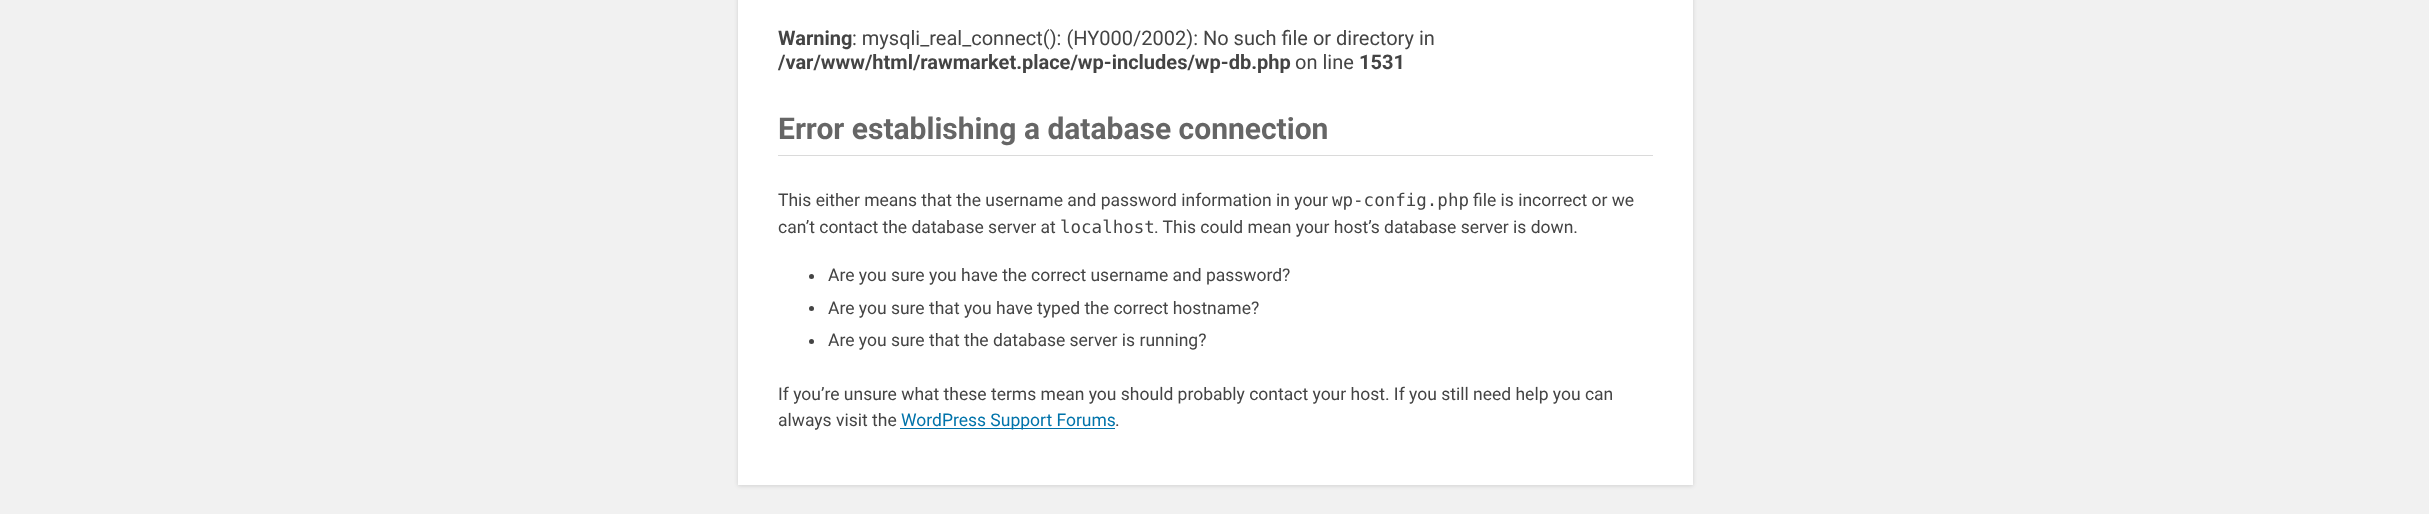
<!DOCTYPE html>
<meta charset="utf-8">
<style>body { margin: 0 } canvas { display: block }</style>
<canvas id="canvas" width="2429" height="514"></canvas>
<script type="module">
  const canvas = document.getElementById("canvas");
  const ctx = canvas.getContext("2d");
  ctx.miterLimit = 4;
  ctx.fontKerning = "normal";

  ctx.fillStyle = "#f1f1f1";
  ctx.fillRect(0, 0, 2429, 514);
  ctx.fillStyle = "rgba(0, 0, 0, 0.13)";
  ctx.filter = "blur(2px)";
  ctx.beginPath();
  ctx.rect(738, -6, 955, 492);
  ctx.fill();
  ctx.filter = "none";
  ctx.fillStyle = "#ffffff";
  ctx.fillRect(738, 0, 955, 485);
  ctx.font = "bold 20px Roboto";
  ctx.fillStyle = "#444444";
  ctx.fillText("Warning", 778, 45);
  ctx.font = "20px Roboto";
  ctx.fillText(": mysqli_real_connect(): (HY000/2002): No such file or directory in", 852, 45);
  ctx.font = "bold 20px Roboto";
  ctx.fillText("/var/www/html/rawmarket.place/wp-includes/wp-db.php", 778, 69);
  ctx.font = "20px Roboto";
  ctx.fillText("on line", 1295, 69);
  ctx.font = "bold 20px Roboto";
  ctx.fillText("1531", 1359, 69);
  ctx.fillStyle = "#dadada";
  ctx.fillRect(778, 155, 875, 1);
  ctx.font = "bold 30px Roboto";
  ctx.fillStyle = "#666666";
  ctx.fillText("Error establishing a database connection", 778, 139);
  ctx.font = "17.5px Roboto";
  ctx.fillStyle = "#444444";
  ctx.fillText("This either means that the username and password information in your", 778, 206);
  ctx.font = "17.5px DejaVu Sans Mono";
  ctx.fillText("wp-config.php", 1332, 206);
  ctx.font = "17.5px Roboto";
  ctx.fillText("file is incorrect or we", 1473, 206);
  ctx.fillText("can’t contact the database server at", 778, 233);
  ctx.font = "17.5px DejaVu Sans Mono";
  ctx.fillText("localhost", 1060, 233);
  ctx.font = "17.5px Roboto";
  ctx.fillText(". This could mean your host’s database server is down.", 1154, 233);
  ctx.beginPath();
  ctx.arc(811.5, 276.5, 2.5, 0, Math.PI * 2);
  ctx.fill();
  ctx.fillText("Are you sure you have the correct username and password?", 828, 281);
  ctx.beginPath();
  ctx.arc(811.5, 308.5, 2.5, 0, Math.PI * 2);
  ctx.fill();
  ctx.fillText("Are you sure that you have typed the correct hostname?", 828, 314);
  ctx.beginPath();
  ctx.arc(811.5, 341.5, 2.5, 0, Math.PI * 2);
  ctx.fill();
  ctx.fillText("Are you sure that the database server is running?", 828, 346);
  ctx.fillText("If you’re unsure what these terms mean you should probably contact your host. If you still need help you can", 778, 400);
  ctx.fillText("always visit the", 778, 426);
  ctx.fillStyle = "#0073aa";
  ctx.fillRect(900, 428, 215, 1);
  ctx.fillText("WordPress Support Forums", 901, 426);
  ctx.fillStyle = "#444444";
  ctx.fillText(".", 1115, 426);
</script>
